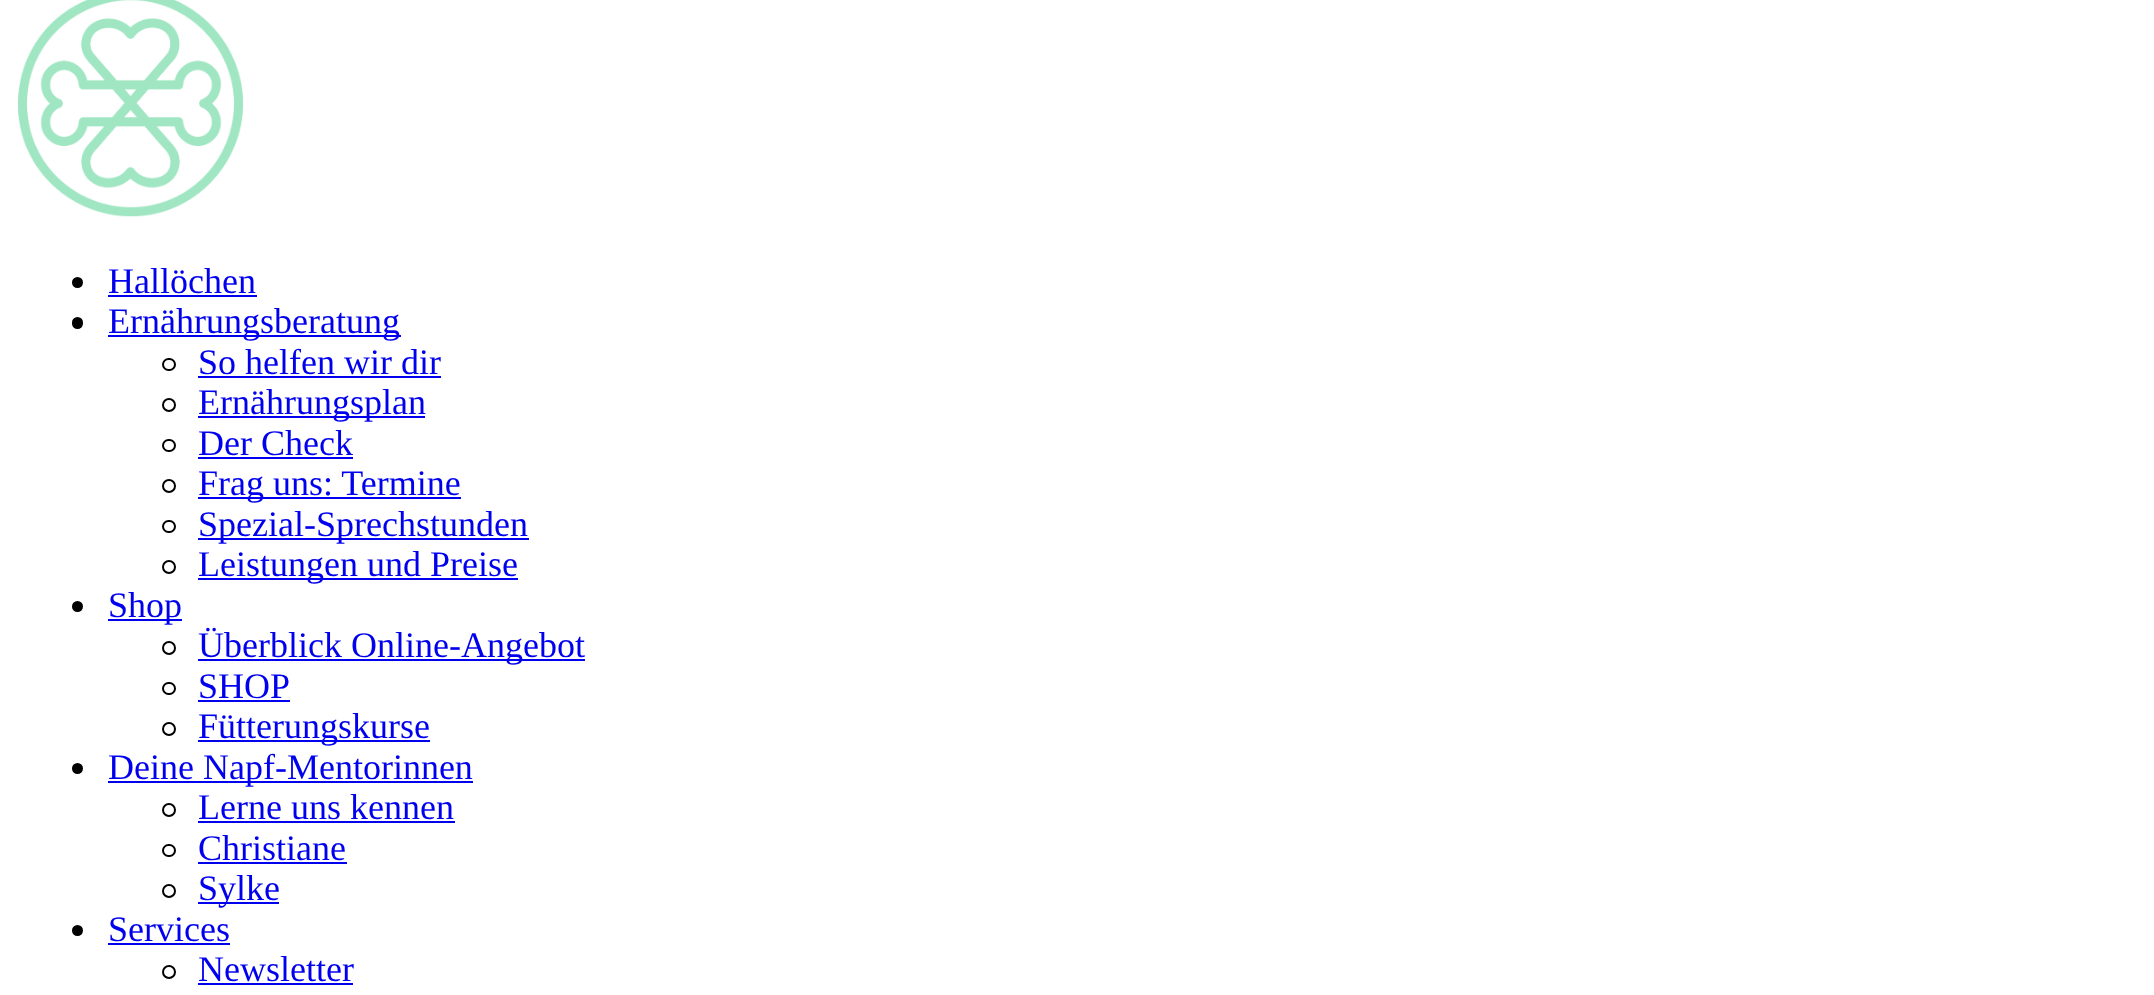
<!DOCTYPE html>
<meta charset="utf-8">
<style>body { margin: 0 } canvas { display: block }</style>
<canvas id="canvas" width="2154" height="995"></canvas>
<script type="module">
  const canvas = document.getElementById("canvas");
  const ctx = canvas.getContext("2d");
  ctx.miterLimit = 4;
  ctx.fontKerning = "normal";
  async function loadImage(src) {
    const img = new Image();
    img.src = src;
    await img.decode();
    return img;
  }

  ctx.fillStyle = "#ffffff";
  ctx.fillRect(0, 0, 2154, 995);
  ctx.drawImage(await loadImage("img1.png"), 18, 0, 225, 217);
  ctx.fillStyle = "#000000";
  ctx.beginPath();
  ctx.arc(77.5, 282.5, 5.5, 0, Math.PI * 2);
  ctx.fill();
  ctx.font = "36px Liberation Serif";
  ctx.fillStyle = "#0000ee";
  ctx.fillText("Hallöchen", 108, 293);
  ctx.fillRect(108, 295, 149, 2);
  ctx.fillStyle = "#000000";
  ctx.beginPath();
  ctx.roundRect(72, 317, 11, 12, 5.5);
  ctx.fill();
  ctx.fillStyle = "#0000ee";
  ctx.fillRect(108, 335, 293, 2);
  ctx.fillText("Ernährungsberatung", 108, 333);
  ctx.beginPath();
  ctx.roundRect(163, 359, 12, 11, 5.5);
  ctx.strokeStyle = "#000000";
  ctx.lineWidth = 2;
  ctx.stroke();
  ctx.fillText("So helfen wir dir", 198, 374);
  ctx.fillRect(198, 376, 243, 2);
  ctx.beginPath();
  ctx.arc(169, 405, 6, 0, Math.PI * 2);
  ctx.stroke();
  ctx.fillRect(198, 416, 227, 2);
  ctx.fillText("Ernährungsplan", 198, 414);
  ctx.beginPath();
  ctx.roundRect(163, 440, 12, 11, 5.5);
  ctx.stroke();
  ctx.fillText("Der Check", 198, 455);
  ctx.fillRect(198, 457, 155, 2);
  ctx.beginPath();
  ctx.arc(169, 486, 6, 0, Math.PI * 2);
  ctx.stroke();
  ctx.fillRect(198, 497, 263, 2);
  ctx.fillText("Frag uns: Termine", 198, 495);
  ctx.beginPath();
  ctx.roundRect(163, 521, 12, 11, 5.5);
  ctx.stroke();
  ctx.fillRect(198, 538, 331, 2);
  ctx.fillText("Spezial-Sprechstunden", 198, 536);
  ctx.beginPath();
  ctx.arc(169, 567, 6, 0, Math.PI * 2);
  ctx.stroke();
  ctx.fillRect(198, 578, 320, 2);
  ctx.fillText("Leistungen und Preise", 198, 576);
  ctx.fillStyle = "#000000";
  ctx.beginPath();
  ctx.arc(77.5, 606.5, 5.5, 0, Math.PI * 2);
  ctx.fill();
  ctx.fillStyle = "#0000ee";
  ctx.fillRect(108, 619, 74, 2);
  ctx.fillText("Shop", 108, 617);
  ctx.beginPath();
  ctx.arc(169, 648, 6, 0, Math.PI * 2);
  ctx.stroke();
  ctx.fillRect(198, 659, 387, 2);
  ctx.fillText("Überblick Online-Angebot", 198, 657);
  ctx.beginPath();
  ctx.roundRect(163, 683, 12, 11, 5.5);
  ctx.stroke();
  ctx.fillText("SHOP", 198, 698);
  ctx.fillRect(198, 700, 92, 2);
  ctx.beginPath();
  ctx.arc(169, 729, 6, 0, Math.PI * 2);
  ctx.stroke();
  ctx.fillRect(198, 740, 232, 2);
  ctx.fillText("Fütterungskurse", 198, 738);
  ctx.fillStyle = "#000000";
  ctx.beginPath();
  ctx.arc(77.5, 768.5, 5.5, 0, Math.PI * 2);
  ctx.fill();
  ctx.fillStyle = "#0000ee";
  ctx.fillRect(108, 781, 365, 2);
  ctx.fillText("Deine Napf-Mentorinnen", 108, 779);
  ctx.beginPath();
  ctx.arc(169, 810, 6, 0, Math.PI * 2);
  ctx.stroke();
  ctx.fillText("Lerne uns kennen", 198, 819);
  ctx.fillRect(198, 821, 257, 2);
  ctx.beginPath();
  ctx.roundRect(163, 845, 12, 11, 5.5);
  ctx.stroke();
  ctx.fillText("Christiane", 198, 860);
  ctx.fillRect(198, 862, 149, 2);
  ctx.beginPath();
  ctx.arc(169, 891, 6, 0, Math.PI * 2);
  ctx.stroke();
  ctx.fillRect(198, 902, 81, 2);
  ctx.fillText("Sylke", 198, 900);
  ctx.fillStyle = "#000000";
  ctx.beginPath();
  ctx.arc(77.5, 930.5, 5.5, 0, Math.PI * 2);
  ctx.fill();
  ctx.fillStyle = "#0000ee";
  ctx.fillText("Services", 108, 941);
  ctx.fillRect(108, 943, 122, 2);
  ctx.beginPath();
  ctx.arc(169, 972, 6, 0, Math.PI * 2);
  ctx.stroke();
  ctx.fillText("Newsletter", 198, 981);
  ctx.fillRect(198, 983, 155, 2);
</script>
